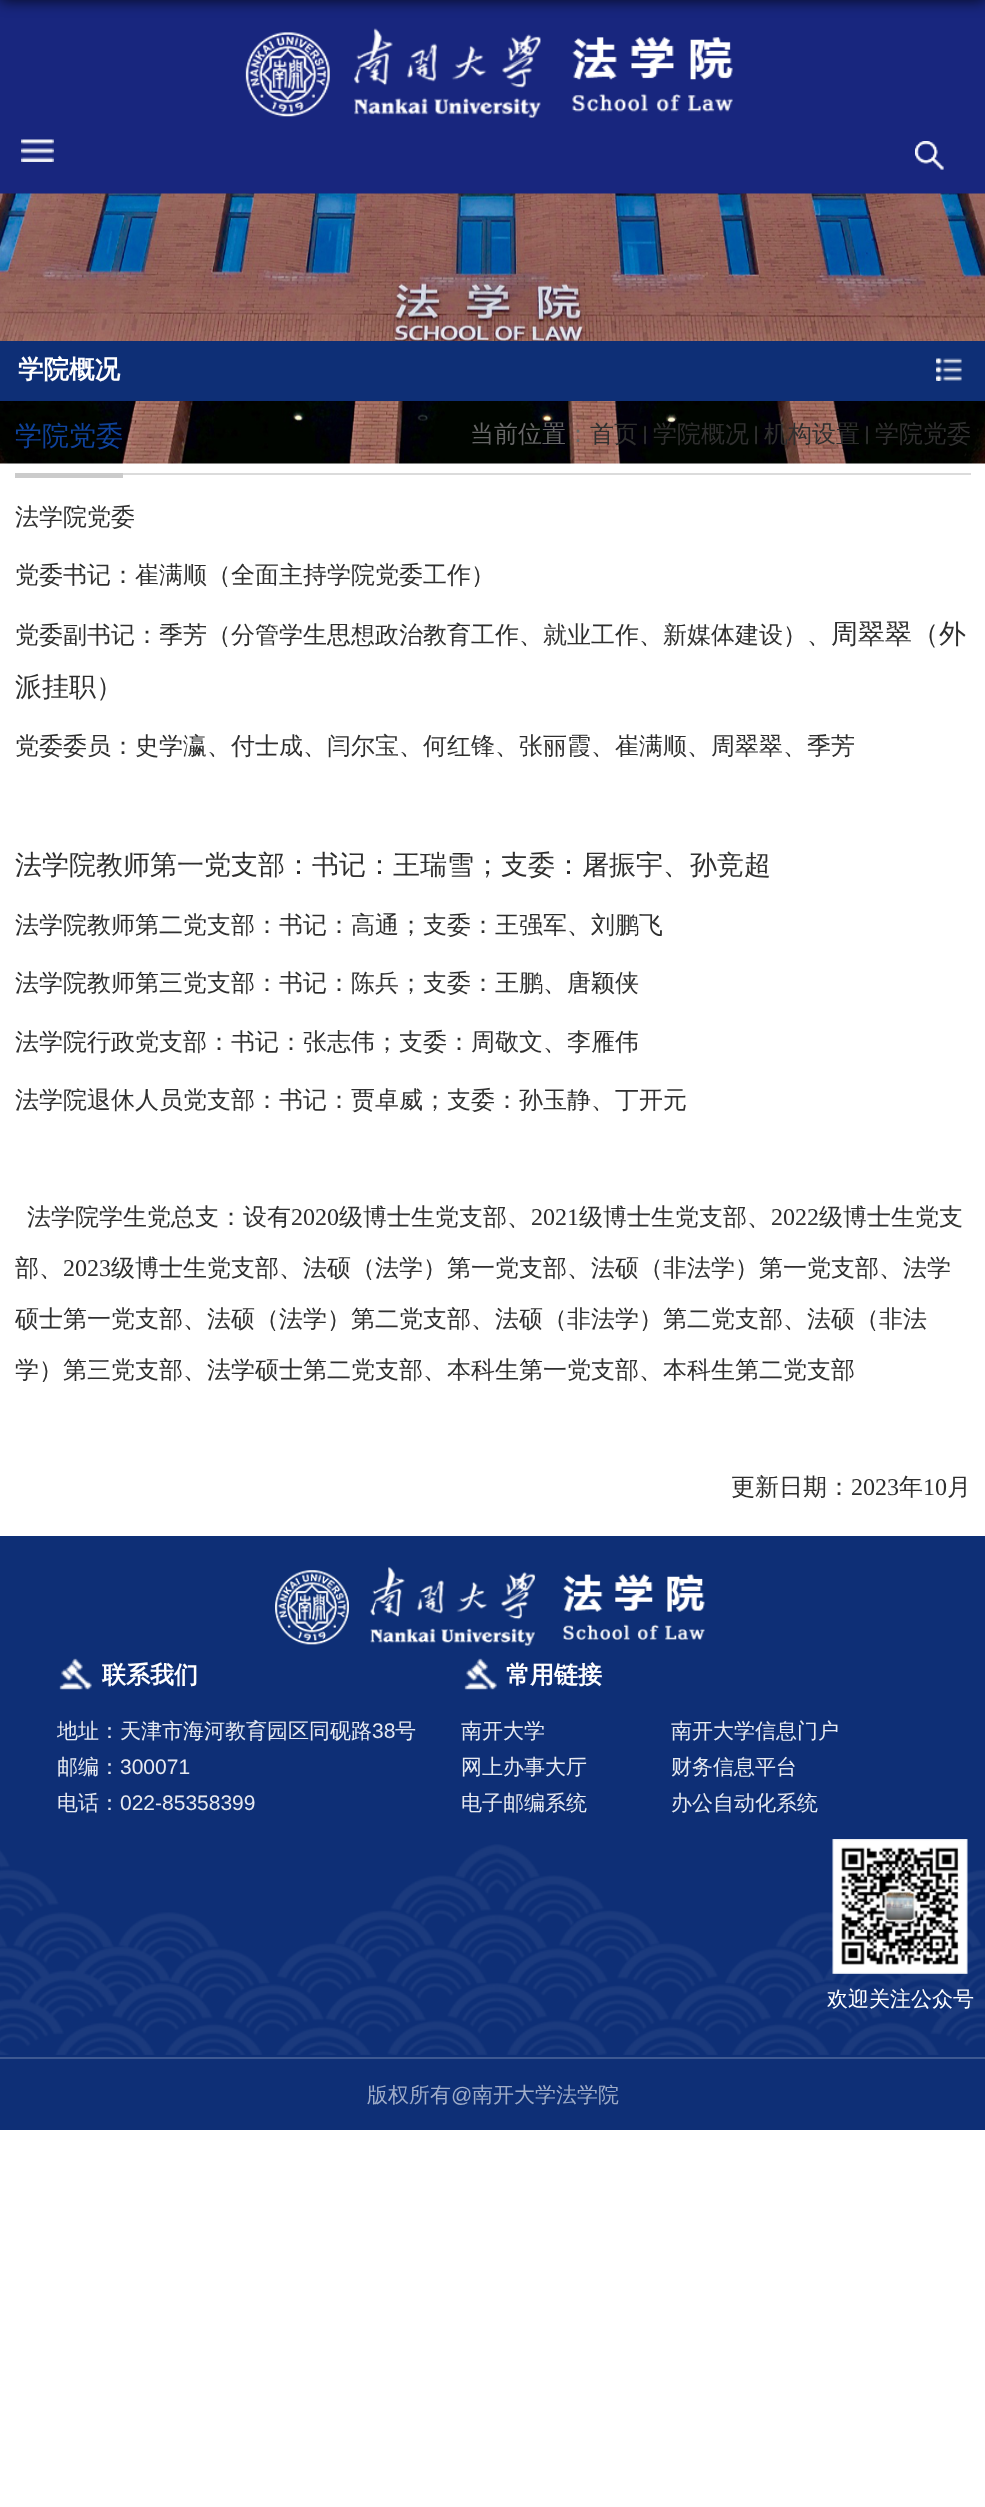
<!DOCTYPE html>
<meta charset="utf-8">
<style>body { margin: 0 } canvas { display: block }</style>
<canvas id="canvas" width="985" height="2507"></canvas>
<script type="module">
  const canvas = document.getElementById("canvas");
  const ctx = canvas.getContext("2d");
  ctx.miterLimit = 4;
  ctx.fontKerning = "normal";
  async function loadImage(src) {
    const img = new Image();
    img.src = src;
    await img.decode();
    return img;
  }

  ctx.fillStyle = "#ffffff";
  ctx.fillRect(0, 0, 985, 2507);
  ctx.fillStyle = "#18267e";
  ctx.fillRect(0, 0, 985, 194);
  ctx.drawImage(await loadImage("img1.png"), 245, 28, 488, 90);
  ctx.drawImage(await loadImage("img2.png"), 21, 139, 33, 23);
  ctx.drawImage(await loadImage("img3.png"), 915, 141, 29, 29);
  ctx.drawImage(await loadImage("img4.png"), 915, 141, 29, 29);
  ctx.fillStyle = "rgba(0, 0, 0, 0.8)";
  ctx.filter = "blur(7.5px)";
  ctx.beginPath();
  ctx.rect(0, -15, 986, 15);
  ctx.fill();
  ctx.filter = "none";
  ctx.drawImage(await loadImage("img5.png"), 0, 193, 985, 271);
  ctx.fillStyle = "#0e2f76";
  ctx.fillRect(0, 341, 985, 60);
  ctx.font = "bold 25.5px WenQuanYi Zen Hei";
  ctx.fillStyle = "#ffffff";
  ctx.fillText("学院概况", 18, 378);
  ctx.drawImage(await loadImage("img6.png"), 936, 358, 26, 23);
  ctx.fillStyle = "#dbdbdb";
  ctx.fillRect(123, 473, 848, 2);
  ctx.fillStyle = "#cbcbcb";
  ctx.fillRect(15, 473, 108, 5);
  ctx.font = "500 27px WenQuanYi Zen Hei";
  ctx.fillStyle = "#0f429b";
  ctx.fillText("学院党委", 15, 445);
  ctx.font = "500 24px WenQuanYi Zen Hei";
  ctx.fillStyle = "#666666";
  ctx.fillText("当前位置：", 470, 442);
  ctx.fillStyle = "#2f2f2f";
  ctx.fillText("首页", 590, 442);
  ctx.drawImage(await loadImage("img7.png"), 644, 425, 2, 20);
  ctx.fillText("学院概况", 653, 442);
  ctx.drawImage(await loadImage("img8.png"), 755, 425, 2, 20);
  ctx.fillText("机构设置", 764, 442);
  ctx.drawImage(await loadImage("img9.png"), 866, 425, 2, 20);
  ctx.fillText("学院党委", 875, 442);
  ctx.fillText("法学院党委", 15, 525);
  ctx.fillText("党委书记：崔满顺（全面主持学院党委工作）", 15, 583);
  ctx.fillText("党委副书记：季芳（分管学生思想政治教育工作、就业工作、新媒体建设）、", 15, 643);
  ctx.font = "500 27px WenQuanYi Zen Hei";
  ctx.fillText("周翠翠（外", 831, 643);
  ctx.fillText("派挂职）", 15, 696);
  ctx.font = "500 24px WenQuanYi Zen Hei";
  ctx.fillText("党委委员：史学瀛、付士成、闫尔宝、何红锋、张丽霞、崔满顺、周翠翠、季芳", 15, 754);
  ctx.font = "500 27px WenQuanYi Zen Hei";
  ctx.fillText("法学院教师第一党支部：书记：王瑞雪；支委：屠振宇、孙竞超", 15, 874);
  ctx.font = "500 24px WenQuanYi Zen Hei";
  ctx.fillText("法学院教师第二党支部：书记：高通；支委：王强军、刘鹏飞", 15, 933);
  ctx.fillText("法学院教师第三党支部：书记：陈兵；支委：王鹏、唐颖侠", 15, 991);
  ctx.fillText("法学院行政党支部：书记：张志伟；支委：周敬文、李雁伟", 15, 1050);
  ctx.fillText("法学院退休人员党支部：书记：贾卓威；支委：孙玉静、丁开元", 15, 1108);
  ctx.fillText("法学院学生党总支：设有", 27, 1225);
  ctx.font = "24px Liberation Serif";
  ctx.fillText("2020", 291, 1225);
  ctx.font = "500 24px WenQuanYi Zen Hei";
  ctx.fillText("级博士生党支部、", 339, 1225);
  ctx.font = "24px Liberation Serif";
  ctx.fillText("2021", 531, 1225);
  ctx.font = "500 24px WenQuanYi Zen Hei";
  ctx.fillText("级博士生党支部、", 579, 1225);
  ctx.font = "24px Liberation Serif";
  ctx.fillText("2022", 771, 1225);
  ctx.font = "500 24px WenQuanYi Zen Hei";
  ctx.fillText("级博士生党支", 819, 1225);
  ctx.fillText("部、", 15, 1276);
  ctx.font = "24px Liberation Serif";
  ctx.fillText("2023", 63, 1276);
  ctx.font = "500 24px WenQuanYi Zen Hei";
  ctx.fillText("级博士生党支部、法硕（法学）第一党支部、法硕（非法学）第一党支部、法学", 111, 1276);
  ctx.fillText("硕士第一党支部、法硕（法学）第二党支部、法硕（非法学）第二党支部、法硕（非法", 15, 1327);
  ctx.fillText("学）第三党支部、法学硕士第二党支部、本科生第一党支部、本科生第二党支部", 15, 1378);
  ctx.fillText("更新日期：", 731, 1495);
  ctx.font = "24px Liberation Serif";
  ctx.fillText("2023", 851, 1495);
  ctx.font = "500 24px WenQuanYi Zen Hei";
  ctx.fillText("年", 899, 1495);
  ctx.font = "24px Liberation Serif";
  ctx.fillText("10", 923, 1495);
  ctx.font = "500 24px WenQuanYi Zen Hei";
  ctx.fillText("月", 947, 1495);
  ctx.fillStyle = "#0e2f76";
  ctx.fillRect(0, 1536, 985, 521);
  ctx.drawImage(await loadImage("img10.png"), 0, 1844, 985, 211);
  ctx.drawImage(await loadImage("img11.png"), 275, 1567, 430, 79);
  ctx.drawImage(await loadImage("img12.png"), 59, 1658, 33, 32);
  ctx.font = "bold 24px WenQuanYi Zen Hei";
  ctx.fillStyle = "#ffffff";
  ctx.fillText("联系我们", 102, 1683);
  ctx.font = "500 21px WenQuanYi Zen Hei";
  ctx.fillStyle = "#e7eaf1";
  ctx.fillText("地址：天津市海河教育园区同砚路", 57, 1738);
  ctx.font = "21px Liberation Sans";
  ctx.fillText("38", 372, 1738);
  ctx.font = "500 21px WenQuanYi Zen Hei";
  ctx.fillText("号", 395, 1738);
  ctx.fillText("邮编：", 57, 1774);
  ctx.font = "21px Liberation Sans";
  ctx.fillText("300071", 120, 1774);
  ctx.font = "500 21px WenQuanYi Zen Hei";
  ctx.fillText("电话：", 57, 1810);
  ctx.font = "21px Liberation Sans";
  ctx.fillText("022-85358399", 120, 1810);
  ctx.drawImage(await loadImage("img13.png"), 464, 1658, 33, 32);
  ctx.font = "bold 24px WenQuanYi Zen Hei";
  ctx.fillStyle = "#ffffff";
  ctx.fillText("常用链接", 506, 1683);
  ctx.font = "500 21px WenQuanYi Zen Hei";
  ctx.fillStyle = "#e7eaf1";
  ctx.fillText("南开大学", 461, 1738);
  ctx.fillText("南开大学信息门户", 671, 1738);
  ctx.fillText("网上办事大厅", 461, 1774);
  ctx.fillText("财务信息平台", 671, 1774);
  ctx.fillText("电子邮编系统", 461, 1810);
  ctx.fillText("办公自动化系统", 671, 1810);
  ctx.drawImage(await loadImage("img14.png"), 832, 1839, 136, 135);
  ctx.fillStyle = "#ffffff";
  ctx.fillText("欢迎关注公众号", 827, 2006);
  ctx.fillStyle = "#0e2f76";
  ctx.fillRect(0, 2059, 985, 71);
  ctx.fillStyle = "#3e5991";
  ctx.fillRect(0, 2057, 985, 2);
  ctx.fillStyle = "#9facc8";
  ctx.fillText("版权所有", 367, 2102);
  ctx.font = "21px Liberation Sans";
  ctx.fillText("@", 451, 2102);
  ctx.font = "500 21px WenQuanYi Zen Hei";
  ctx.fillText("南开大学法学院", 472, 2102);
</script>
